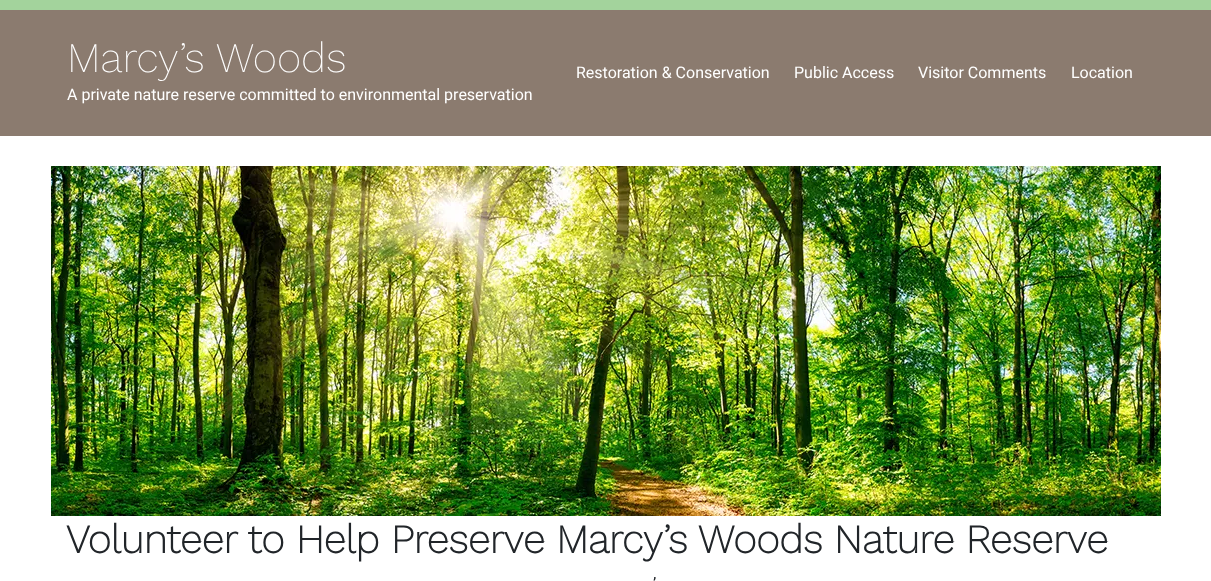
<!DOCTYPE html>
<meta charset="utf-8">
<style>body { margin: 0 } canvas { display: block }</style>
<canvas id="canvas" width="1211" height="581"></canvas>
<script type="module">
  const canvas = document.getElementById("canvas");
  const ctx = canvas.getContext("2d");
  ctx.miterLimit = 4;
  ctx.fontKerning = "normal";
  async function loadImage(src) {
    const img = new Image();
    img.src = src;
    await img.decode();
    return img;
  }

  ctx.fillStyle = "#ffffff";
  ctx.fillRect(0, 0, 1211, 581);
  ctx.fillStyle = "#a3d39c";
  ctx.fillRect(0, 0, 1211, 10);
  ctx.fillStyle = "#8b7b6f";
  ctx.fillRect(0, 10, 1211, 126);
  ctx.font = "200 42px Work Sans";
  ctx.fillStyle = "#ffffff";
  ctx.fillText("Marcy’s Woods", 67, 72);
  ctx.font = "16px Roboto";
  ctx.fillText("A private nature reserve committed to environmental preservation", 67, 100);
  ctx.fillText("Restoration & Conservation", 576, 78);
  ctx.fillText("Public Access", 794, 78);
  ctx.fillText("Visitor Comments", 918, 78);
  ctx.fillText("Location", 1071, 78);
  ctx.drawImage(await loadImage("img1.png"), 51, 166, 1110, 350);
  ctx.font = "bold 40px Work Sans";
  ctx.fillStyle = "#212529";
  ctx.fillText("Volunteer to Help Preserve Marcy’s Woods Nature Reserve", 66, 553);
  ctx.font = "16px Roboto";
  ctx.fillText("’", 653, 589);
</script>
